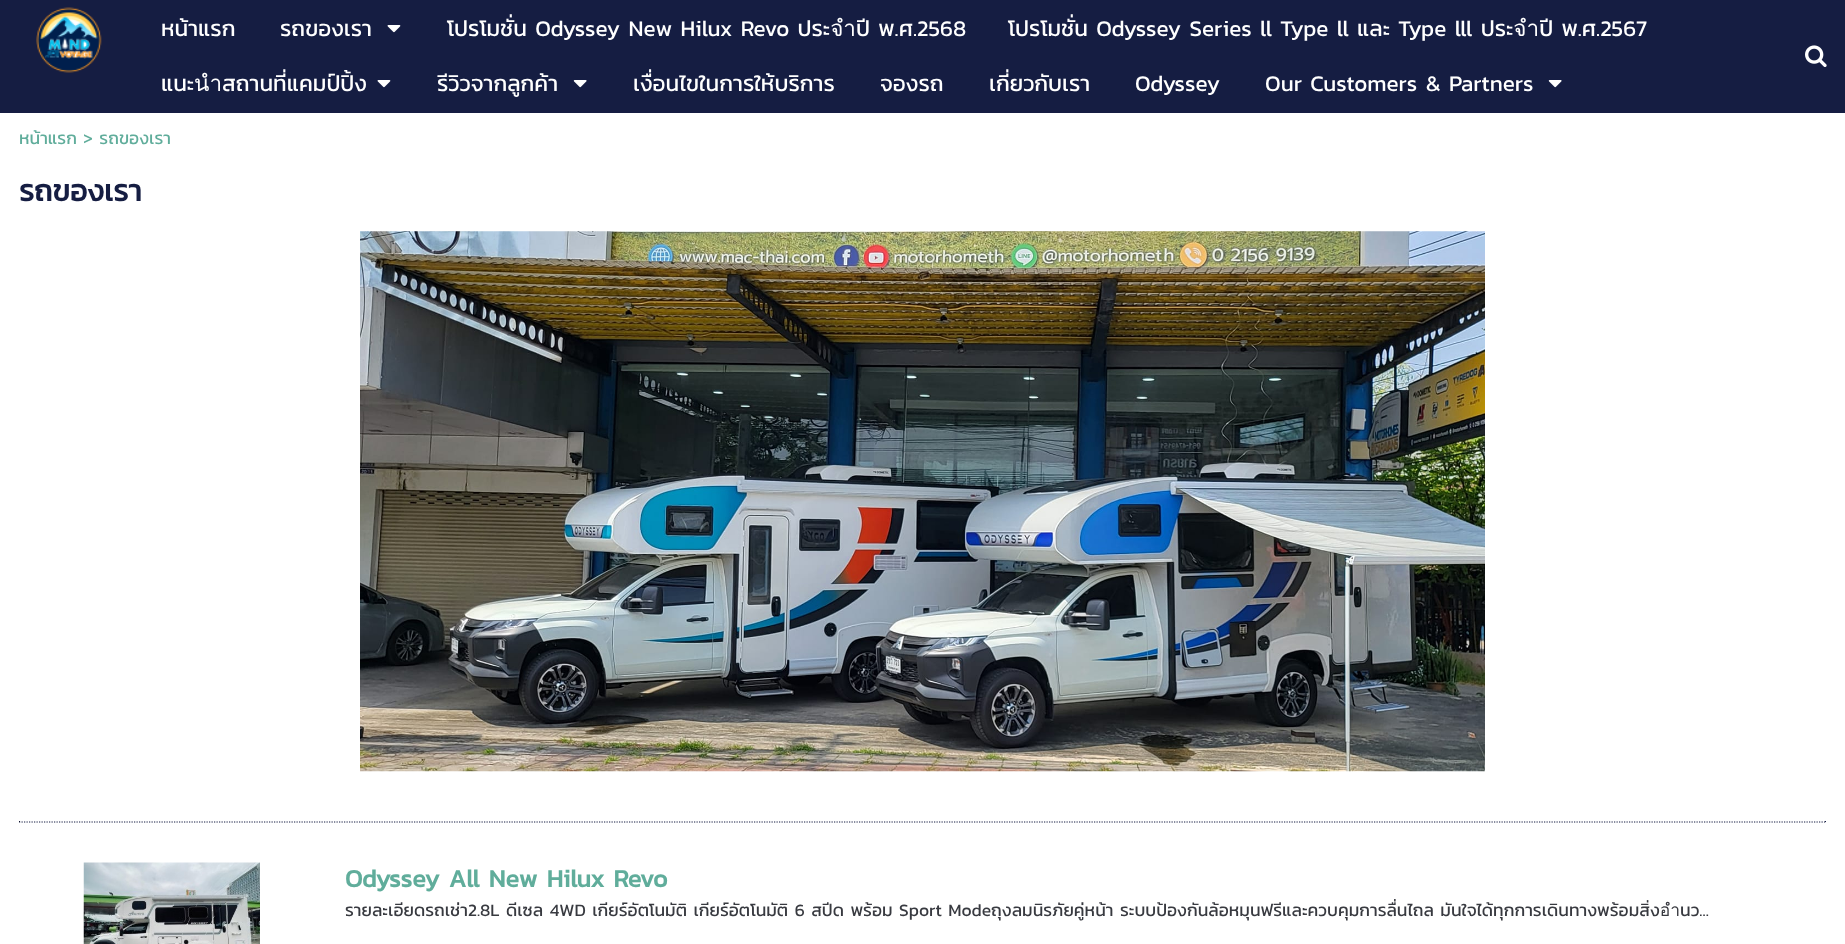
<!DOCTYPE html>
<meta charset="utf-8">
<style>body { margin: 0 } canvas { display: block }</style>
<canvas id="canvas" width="1845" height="944"></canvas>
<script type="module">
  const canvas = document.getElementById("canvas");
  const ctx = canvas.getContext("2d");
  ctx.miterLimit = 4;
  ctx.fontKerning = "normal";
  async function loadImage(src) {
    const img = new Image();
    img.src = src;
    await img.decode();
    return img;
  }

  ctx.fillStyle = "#ffffff";
  ctx.fillRect(0, 0, 1845, 944);
  ctx.fillStyle = "#151d42";
  ctx.fillRect(0, 0, 1845, 113);
  ctx.drawImage(await loadImage("img1.png"), 36, 7, 66, 66);
  ctx.font = "22.5px Kanit";
  ctx.fillStyle = "#ffffff";
  ctx.fillText("หน้าแรก", 161, 36);
  ctx.fillText("รถของเรา", 280, 36);
  ctx.drawImage(await loadImage("img2.png"), 387, 25, 14, 8);
  ctx.fillText("โปรโมชั่น Odyssey New Hilux Revo ประจำปี พ.ศ.2568", 447, 36);
  ctx.fillText("โปรโมชั่น Odyssey Series ll Type ll และ Type lll ประจำปี พ.ศ.2567", 1008, 36);
  ctx.fillText("แนะนำสถานที่แคมป์ปิ้ง", 161, 91);
  ctx.drawImage(await loadImage("img2.png"), 377, 80, 14, 8);
  ctx.fillText("รีวิวจากลูกค้า", 437, 91);
  ctx.drawImage(await loadImage("img3.png"), 573, 80, 14, 8);
  ctx.fillText("เงื่อนไขในการให้บริการ", 633, 91);
  ctx.fillText("จองรถ", 880, 91);
  ctx.fillText("เกี่ยวกับเรา", 989, 91);
  ctx.fillText("Odyssey", 1135, 91);
  ctx.fillText("Our Customers & Partners", 1265, 91);
  ctx.drawImage(await loadImage("img3.png"), 1548, 80, 14, 8);
  ctx.drawImage(await loadImage("img4.png"), 1805, 45, 22, 22);
  ctx.font = "17.5px Kanit";
  ctx.fillStyle = "#60ad9b";
  ctx.fillText("หน้าแรก > รถของเรา", 19, 144);
  ctx.font = "bold 30px Kanit";
  ctx.fillStyle = "#151d42";
  ctx.fillText("รถของเรา", 19, 201);
  ctx.drawImage(await loadImage("img5.png"), 360, 231, 1125, 541);
  ctx.beginPath();
  ctx.moveTo(19, 822);
  ctx.lineTo(1826, 822);
  ctx.strokeStyle = "#151d42";
  ctx.lineWidth = 1.2;
  ctx.setLineDash([1.25, 1.25]);
  ctx.stroke();
  ctx.fillRect(1825, 821, 1, 1);
  ctx.fillStyle = "#0e132c";
  ctx.fillRect(19, 821, 1, 1);
  ctx.drawImage(await loadImage("img6.png"), 83, 862, 177, 82);
  ctx.font = "bold 25px Kanit";
  ctx.fillStyle = "#60ad9b";
  ctx.fillText("Odyssey All New Hilux Revo", 345, 887);
  ctx.font = "17.5px Kanit";
  ctx.fillStyle = "#383a40";
  ctx.fillText("รายละเอียดรถเช่า2.8L ดีเซล 4WD เกียร์อัตโนมัติ เกียร์อัตโนมัติ 6 สปีด พร้อม Sport Modeถุงลมนิรภัยคู่หน้า ระบบป้องกันล้อหมุนฟรีและควบคุมการลื่นไถล มันใจได้ทุกการเดินทางพร้อมสิ่งอำนว...", 345, 916);
</script>
